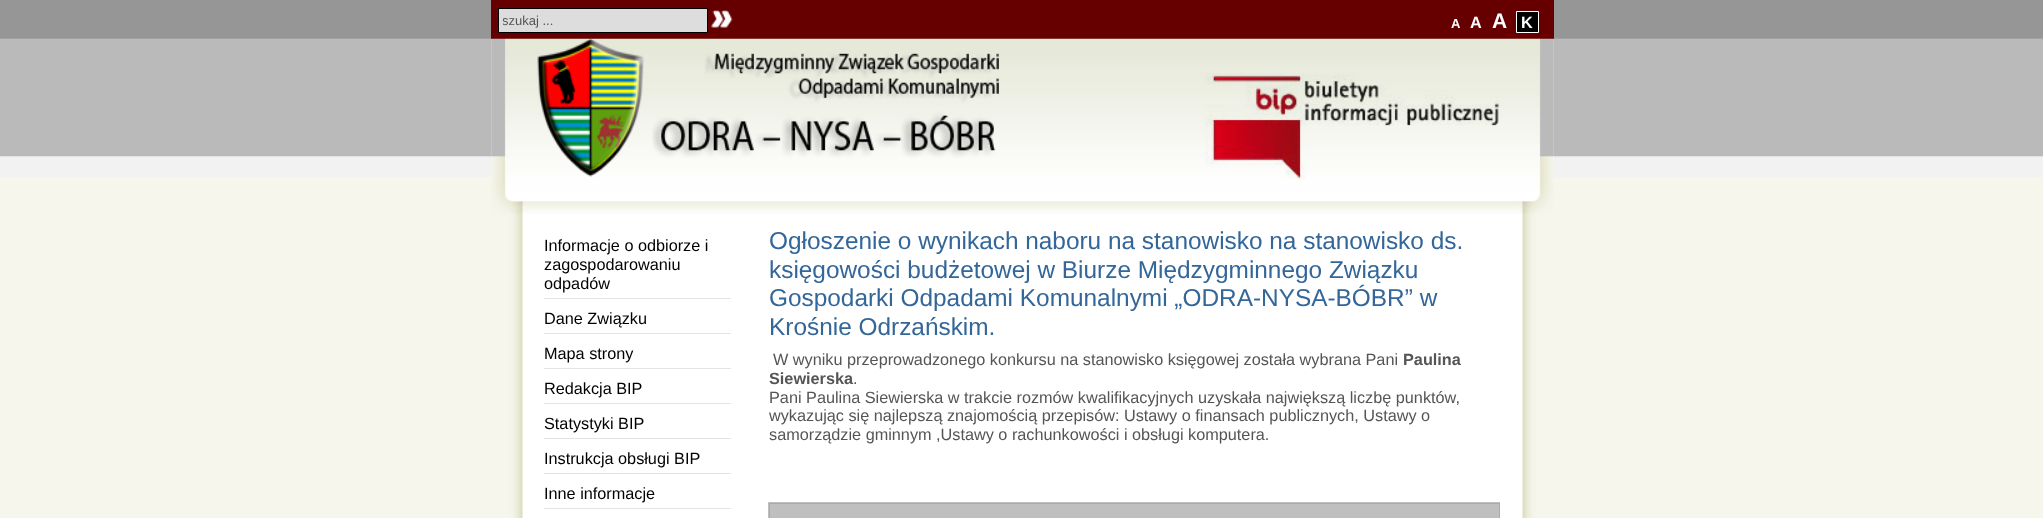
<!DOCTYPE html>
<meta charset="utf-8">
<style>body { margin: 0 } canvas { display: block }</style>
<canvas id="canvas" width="2043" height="518"></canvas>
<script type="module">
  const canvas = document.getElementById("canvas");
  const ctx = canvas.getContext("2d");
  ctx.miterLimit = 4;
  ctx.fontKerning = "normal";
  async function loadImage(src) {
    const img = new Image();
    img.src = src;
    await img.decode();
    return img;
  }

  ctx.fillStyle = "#f6f6ed";
  ctx.fillRect(0, 0, 2043, 518);
  ctx.drawImage(await loadImage("img1.png"), 0, 0, 2043, 177);
  ctx.drawImage(await loadImage("img2.png"), 491, 39, 1063, 479);
  ctx.fillStyle = "#660000";
  ctx.fillRect(491, 0, 1063, 39);
  ctx.drawImage(await loadImage("img3.png"), 491, 38, 1063, 176);
  ctx.fillStyle = "#dddddd";
  ctx.beginPath();
  ctx.rect(498.5, 8.5, 209, 24);
  ctx.fill();
  ctx.strokeStyle = "#000000";
  ctx.stroke();
  ctx.save();
  ctx.beginPath();
  ctx.rect(503, 13, 200, 15);
  ctx.clip();
  ctx.font = "13px Liberation Sans";
  ctx.fillStyle = "#555555";
  ctx.fillText("szukaj ...", 502, 25);
  ctx.restore();
  ctx.drawImage(await loadImage("img4.png"), 711, 10, 22, 18);
  ctx.font = "bold 13px Liberation Sans";
  ctx.fillStyle = "#ffffff";
  ctx.fillText("A", 1451, 28);
  ctx.font = "bold 16.25px Liberation Sans";
  ctx.fillText("A", 1470, 28);
  ctx.font = "bold 21px Liberation Sans";
  ctx.fillText("A", 1492, 28);
  ctx.fillStyle = "#000000";
  ctx.beginPath();
  ctx.rect(1516.5, 11.5, 22, 21);
  ctx.fill();
  ctx.strokeStyle = "#ffffff";
  ctx.stroke();
  ctx.font = "bold 16.25px Liberation Sans";
  ctx.fillStyle = "#ffffff";
  ctx.fillText("K", 1521, 28);
  ctx.drawImage(await loadImage("img5.png"), 537, 38, 462, 139);
  ctx.fillStyle = "#e3e3e3";
  ctx.fillRect(544, 298, 187, 1);
  ctx.font = "16.25px Liberation Sans";
  ctx.fillStyle = "#000000";
  ctx.fillText("Informacje o odbiorze i", 544, 251);
  ctx.fillText("zagospodarowaniu", 544, 270);
  ctx.fillText("odpadów", 544, 289);
  ctx.fillStyle = "#e3e3e3";
  ctx.fillRect(544, 333, 187, 1);
  ctx.fillStyle = "#000000";
  ctx.fillText("Dane Związku", 544, 324);
  ctx.fillStyle = "#e3e3e3";
  ctx.fillRect(544, 368, 187, 1);
  ctx.fillStyle = "#000000";
  ctx.fillText("Mapa strony", 544, 359);
  ctx.fillStyle = "#e3e3e3";
  ctx.fillRect(544, 403, 187, 1);
  ctx.fillStyle = "#000000";
  ctx.fillText("Redakcja BIP", 544, 394);
  ctx.fillStyle = "#e3e3e3";
  ctx.fillRect(544, 438, 187, 1);
  ctx.fillStyle = "#000000";
  ctx.fillText("Statystyki BIP", 544, 429);
  ctx.fillStyle = "#e3e3e3";
  ctx.fillRect(544, 473, 187, 1);
  ctx.fillStyle = "#000000";
  ctx.fillText("Instrukcja obsługi BIP", 544, 464);
  ctx.fillStyle = "#e3e3e3";
  ctx.fillRect(544, 508, 187, 1);
  ctx.fillStyle = "#000000";
  ctx.fillText("Inne informacje", 544, 499);
  ctx.font = "24.4px Liberation Sans";
  ctx.fillStyle = "#336699";
  ctx.fillText("Ogłoszenie o wynikach naboru na stanowisko na stanowisko ds.", 769, 249);
  ctx.fillText("księgowości budżetowej w Biurze Międzygminnego Związku", 769, 278);
  ctx.fillText("Gospodarki Odpadami Komunalnymi „ODRA-NYSA-BÓBR” w", 769, 306);
  ctx.fillText("Krośnie Odrzańskim.", 769, 335);
  ctx.font = "16.25px Liberation Sans";
  ctx.fillStyle = "#555555";
  ctx.fillText("W wyniku przeprowadzonego konkursu na stanowisko księgowej została wybrana Pani", 773, 365);
  ctx.font = "bold 16.25px Liberation Sans";
  ctx.fillText("Paulina", 1403, 365);
  ctx.fillText("Siewierska", 769, 384);
  ctx.font = "16.25px Liberation Sans";
  ctx.fillText(".", 853, 384);
  ctx.fillText("Pani Paulina Siewierska w trakcie rozmów kwalifikacyjnych uzyskała największą liczbę punktów,", 769, 403);
  ctx.fillText("wykazując się najlepszą znajomością przepisów: Ustawy o finansach publicznych, Ustawy o", 769, 421);
  ctx.fillText("samorządzie gminnym ,Ustawy o rachunkowości i obsługi komputera.", 769, 440);
  ctx.fillStyle = "#bfbfbf";
  ctx.fillRect(768, 502, 732, 16);
  ctx.strokeStyle = "#aaaaaa";
  ctx.strokeRect(769.5, 503.5, 730, 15);
</script>
